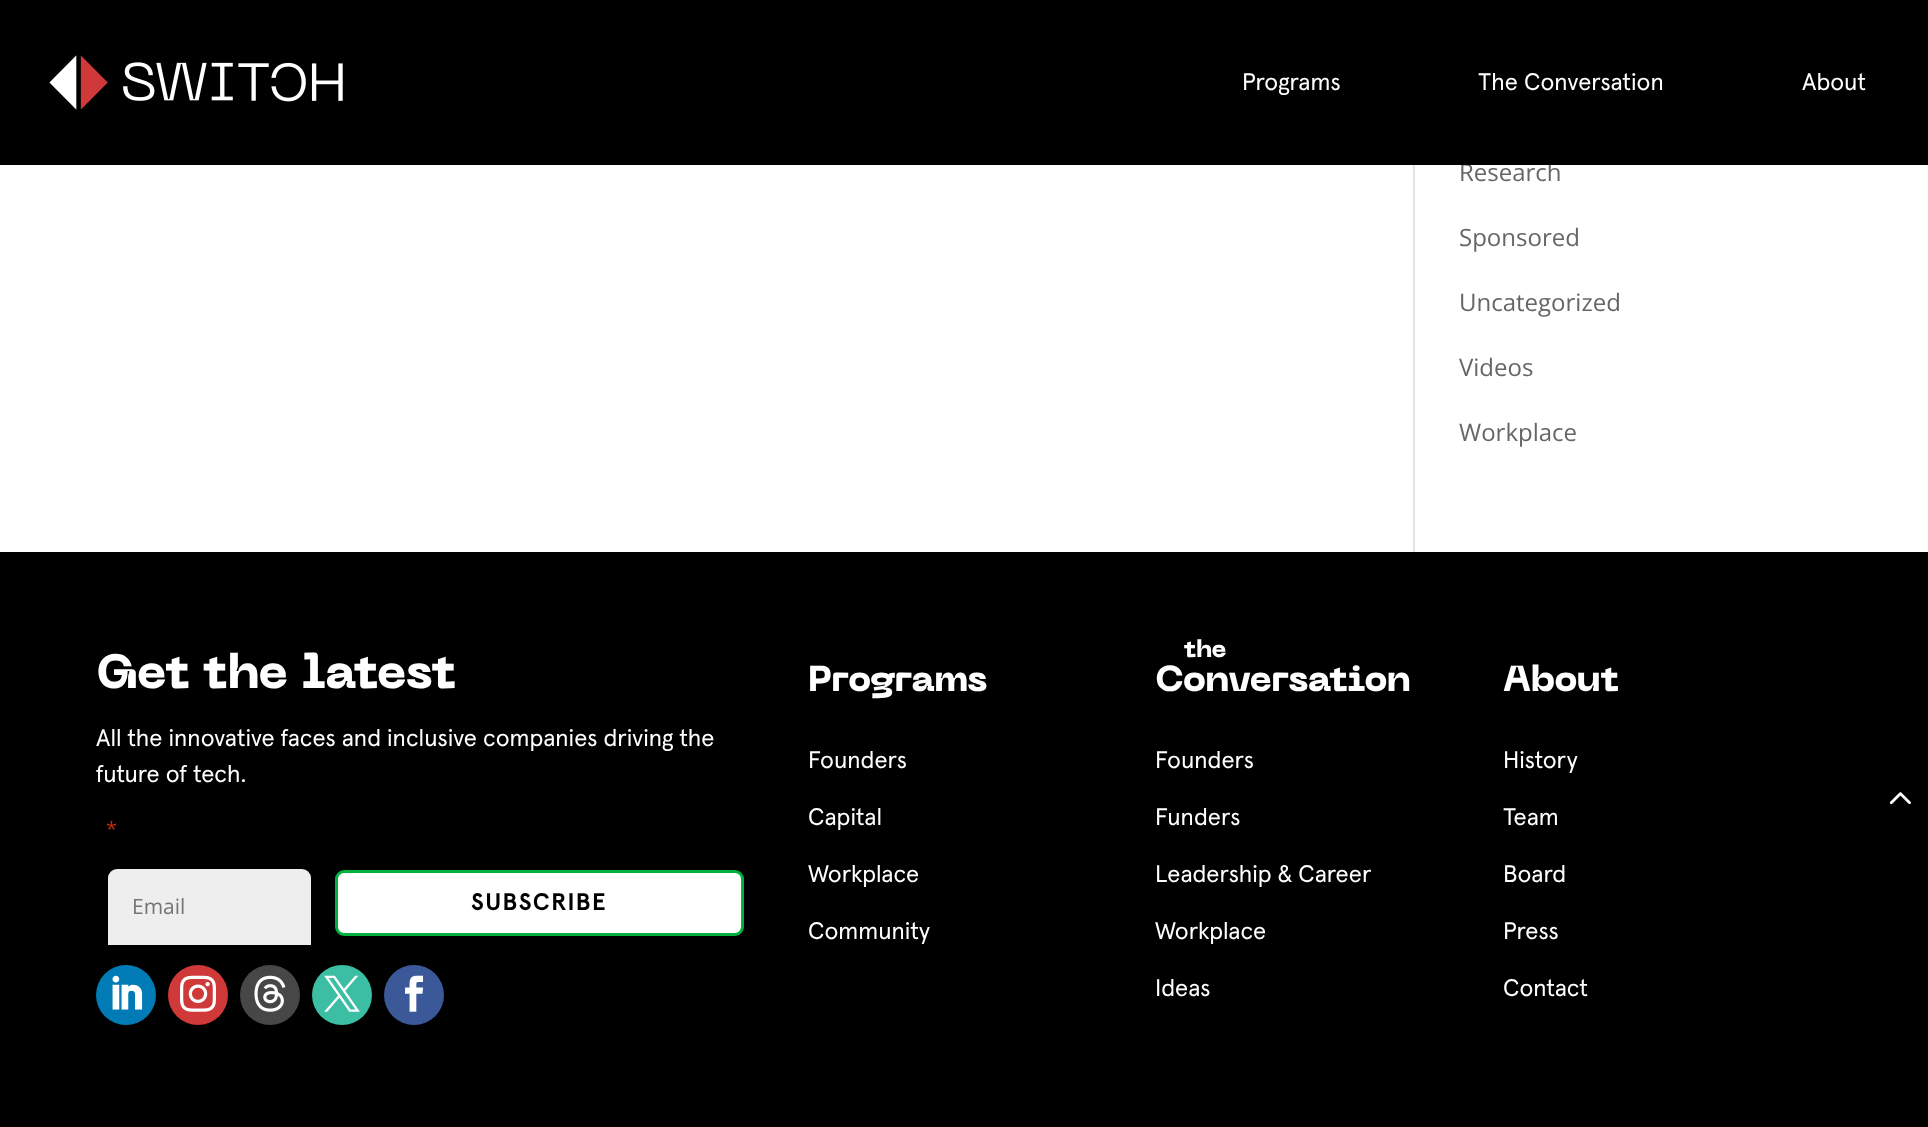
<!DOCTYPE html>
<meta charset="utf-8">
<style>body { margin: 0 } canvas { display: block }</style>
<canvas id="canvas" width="1928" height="1127"></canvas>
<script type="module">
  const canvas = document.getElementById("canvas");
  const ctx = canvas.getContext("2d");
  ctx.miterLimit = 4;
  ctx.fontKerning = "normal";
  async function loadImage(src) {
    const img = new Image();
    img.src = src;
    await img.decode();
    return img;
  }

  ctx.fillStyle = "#ffffff";
  ctx.fillRect(0, 0, 1928, 1127);
  ctx.font = "24px Open Sans";
  ctx.fillStyle = "#666666";
  ctx.fillText("Research", 1459, 181);
  ctx.fillStyle = "#000000";
  ctx.fillRect(0, 0, 1928, 165);
  ctx.drawImage(await loadImage("img1.png"), 49, 55, 294, 55);
  ctx.font = "24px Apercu";
  ctx.fillStyle = "#ffffff";
  ctx.fillText("Programs", 1242, 90);
  ctx.fillText("The Conversation", 1478, 90);
  ctx.fillText("About", 1802, 90);
  ctx.fillStyle = "#e2e2e2";
  ctx.fillRect(1413, 165, 2, 387);
  ctx.font = "24px Open Sans";
  ctx.fillStyle = "#666666";
  ctx.fillText("Sponsored", 1459, 246);
  ctx.fillText("Uncategorized", 1459, 311);
  ctx.fillText("Videos", 1459, 376);
  ctx.fillText("Workplace", 1459, 441);
  ctx.fillStyle = "#000000";
  ctx.fillRect(0, 552, 1928, 575);
  ctx.font = "800 48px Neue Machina";
  ctx.fillStyle = "#ffffff";
  ctx.fillText("Get the latest", 96, 688);
  ctx.font = "24px Apercu";
  ctx.fillText("All the innovative faces and inclusive companies driving the", 96, 746);
  ctx.fillText("future of tech.", 96, 782);
  ctx.font = "20px Open Sans";
  ctx.fillStyle = "#c02b0a";
  ctx.fillText("*", 106, 836);
  ctx.fillStyle = "#eeeeee";
  ctx.beginPath();
  ctx.roundRect(108, 869, 203, 76, [9, 9, 0, 0]);
  ctx.fill();
  ctx.font = "21px Open Sans";
  ctx.fillStyle = "#757575";
  ctx.fillText("Email", 132, 914);
  ctx.fillStyle = "#ffffff";
  ctx.beginPath();
  ctx.roundRect(336.5, 871.5, 406, 63, 7.5);
  ctx.fill();
  ctx.strokeStyle = "#00b140";
  ctx.lineWidth = 3;
  ctx.stroke();
  ctx.letterSpacing = "1.5px";
  ctx.font = "bold 24px Apercu";
  ctx.fillStyle = "#000000";
  ctx.fillText("SUBSCRIBE", 471, 910);
  ctx.fillStyle = "#007bb6";
  ctx.beginPath();
  ctx.arc(126, 995, 30, 0, Math.PI * 2);
  ctx.fill();
  ctx.drawImage(await loadImage("img2.png"), 112, 975, 31, 35);
  ctx.fillStyle = "#cf3939";
  ctx.beginPath();
  ctx.arc(198, 995, 30, 0, Math.PI * 2);
  ctx.fill();
  ctx.drawImage(await loadImage("img3.png"), 180, 975, 36, 37);
  ctx.fillStyle = "#474747";
  ctx.beginPath();
  ctx.arc(270, 995, 30, 0, Math.PI * 2);
  ctx.fill();
  ctx.drawImage(await loadImage("img4.png"), 254, 975, 32, 37);
  ctx.fillStyle = "#3bbea3";
  ctx.beginPath();
  ctx.arc(342, 995, 30, 0, Math.PI * 2);
  ctx.fill();
  ctx.drawImage(await loadImage("img5.png"), 324, 975, 36, 37);
  ctx.fillStyle = "#3b5998";
  ctx.beginPath();
  ctx.arc(414, 995, 30, 0, Math.PI * 2);
  ctx.fill();
  ctx.drawImage(await loadImage("img6.png"), 405, 975, 19, 37);
  ctx.letterSpacing = "0px";
  ctx.font = "800 36px Neue Machina";
  ctx.fillStyle = "#ffffff";
  ctx.fillText("Programs", 808, 691);
  ctx.font = "24px Apercu";
  ctx.fillText("Founders", 808, 768);
  ctx.fillText("Capital", 808, 825);
  ctx.fillText("Workplace", 808, 882);
  ctx.fillText("Community", 808, 939);
  ctx.font = "800 24px Neue Machina";
  ctx.fillText("the", 1184, 657);
  ctx.font = "800 36px Neue Machina";
  ctx.fillText("Conversation", 1155, 691);
  ctx.font = "24px Apercu";
  ctx.fillText("Founders", 1155, 768);
  ctx.fillText("Funders", 1155, 825);
  ctx.fillText("Leadership & Career", 1155, 882);
  ctx.fillText("Workplace", 1155, 939);
  ctx.fillText("Ideas", 1155, 996);
  ctx.font = "800 36px Neue Machina";
  ctx.fillText("About", 1503, 691);
  ctx.font = "24px Apercu";
  ctx.fillText("History", 1503, 768);
  ctx.fillText("Team", 1503, 825);
  ctx.fillText("Board", 1503, 882);
  ctx.fillText("Press", 1503, 939);
  ctx.fillText("Contact", 1503, 996);
  ctx.drawImage(await loadImage("img7.png"), 1889, 792, 22, 13);
</script>
